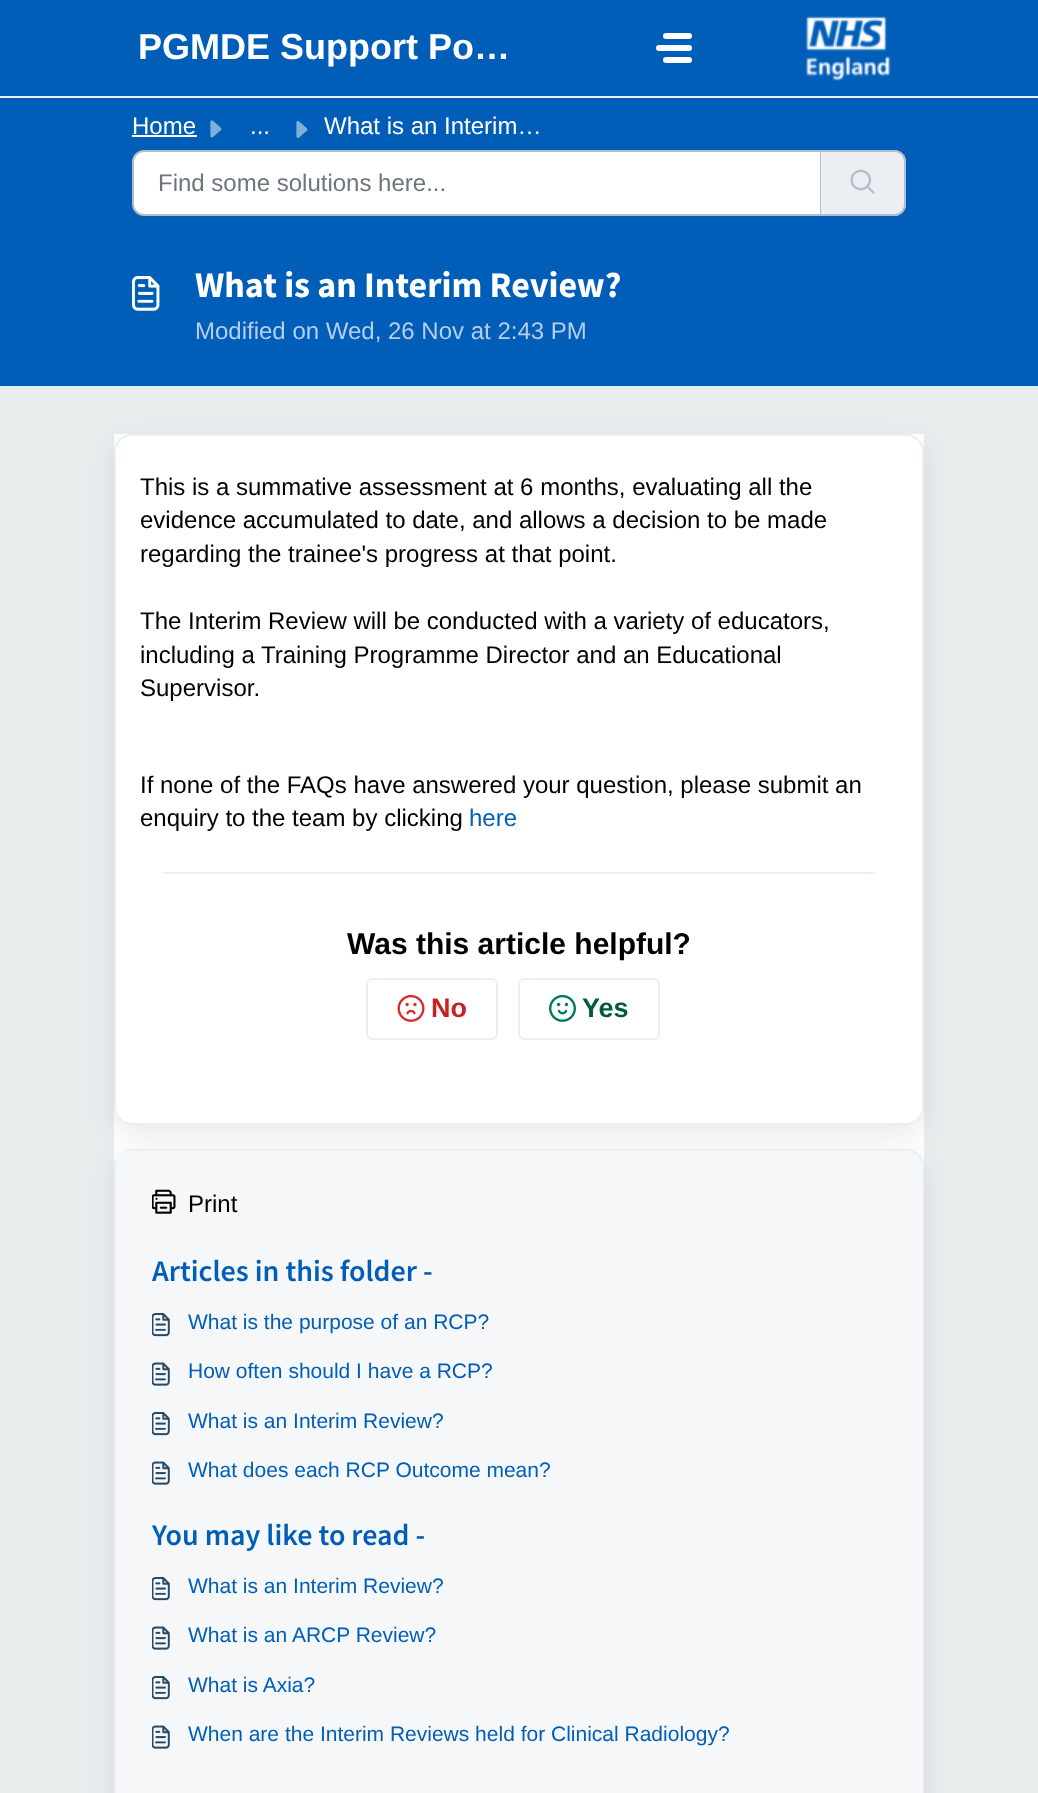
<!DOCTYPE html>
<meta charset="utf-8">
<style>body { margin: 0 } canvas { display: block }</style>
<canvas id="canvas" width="1038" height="1793"></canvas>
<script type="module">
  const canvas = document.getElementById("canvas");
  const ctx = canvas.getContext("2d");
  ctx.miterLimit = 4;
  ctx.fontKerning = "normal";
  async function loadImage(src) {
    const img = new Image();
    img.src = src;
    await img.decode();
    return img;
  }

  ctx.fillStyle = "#e8edee";
  ctx.fillRect(0, 0, 1038, 1793);
  ctx.fillStyle = "#005eb8";
  ctx.fillRect(0, 0, 1038, 96);
  ctx.fillStyle = "#ebeff3";
  ctx.fillRect(0, 96, 1038, 2);
  ctx.font = "bold 36px Liberation Sans";
  ctx.fillStyle = "#ffffff";
  ctx.fillText("PGMDE Support Po…", 138, 59);
  ctx.beginPath();
  ctx.roundRect(663, 33, 29, 6, 3);
  ctx.fill();
  ctx.beginPath();
  ctx.roundRect(656, 45, 36, 6, 3);
  ctx.fill();
  ctx.beginPath();
  ctx.roundRect(663, 57, 29, 6, 3);
  ctx.fill();
  ctx.drawImage(await loadImage("img1.png"), 806, 16, 85, 65);
  ctx.fillStyle = "#005eb8";
  ctx.fillRect(0, 98, 1038, 288);
  ctx.font = "24px Liberation Sans";
  ctx.fillStyle = "#ffffff";
  ctx.fillText("Home", 132, 134);
  ctx.fillRect(132, 135, 65, 2);
  ctx.drawImage(await loadImage("img2.png"), 210, 120, 12, 18);
  ctx.fillText("...", 250, 134);
  ctx.drawImage(await loadImage("img3.png"), 296, 121, 12, 17);
  ctx.fillText("What is an Interim…", 324, 134);
  ctx.beginPath();
  ctx.roundRect(133, 151, 688, 64, [11, 0, 0, 11]);
  ctx.fill();
  ctx.strokeStyle = "#b1bdc8";
  ctx.lineWidth = 2;
  ctx.stroke();
  ctx.fillStyle = "#6c757d";
  ctx.fillText("Find some solutions here...", 158, 191);
  ctx.fillStyle = "#ebeff3";
  ctx.beginPath();
  ctx.roundRect(821, 150, 85, 66, [0, 12, 12, 0]);
  ctx.fill();
  ctx.fillStyle = "#b1bdc8";
  ctx.beginPath();
  ctx.moveTo(820, 150);
  ctx.lineTo(894, 150);
  ctx.bezierCurveTo(901, 150, 906, 155, 906, 162);
  ctx.lineTo(906, 204);
  ctx.bezierCurveTo(906, 211, 901, 216, 894, 216);
  ctx.lineTo(820, 216);
  ctx.closePath();
  ctx.moveTo(820, 152);
  ctx.lineTo(894, 152);
  ctx.bezierCurveTo(900, 152, 904, 156, 904, 162);
  ctx.lineTo(904, 204);
  ctx.bezierCurveTo(904, 210, 900, 214, 894, 214);
  ctx.lineTo(820, 214);
  ctx.closePath();
  ctx.fill("evenodd");
  ctx.drawImage(await loadImage("img4.png"), 850, 169, 25, 25);
  ctx.drawImage(await loadImage("img5.png"), 132, 276, 28, 35);
  ctx.font = "bold 36px Source Sans Pro";
  ctx.fillStyle = "#ffffff";
  ctx.fillText("What is an Interim Review?", 195, 297);
  ctx.font = "24px Liberation Sans";
  ctx.fillStyle = "#b3cfea";
  ctx.fillText("Modified on Wed, 26 Nov at 2:43 PM", 195, 339);
  ctx.fillStyle = "#ffffff";
  ctx.fillRect(114, 434, 810, 733);
  ctx.save();
  ctx.beginPath();
  ctx.moveTo(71, 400);
  ctx.lineTo(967, 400);
  ctx.lineTo(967, 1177);
  ctx.lineTo(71, 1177);
  ctx.closePath();
  ctx.moveTo(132, 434);
  ctx.lineTo(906, 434);
  ctx.bezierCurveTo(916, 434, 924, 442, 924, 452);
  ctx.lineTo(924, 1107);
  ctx.bezierCurveTo(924, 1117, 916, 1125, 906, 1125);
  ctx.lineTo(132, 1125);
  ctx.bezierCurveTo(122, 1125, 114, 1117, 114, 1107);
  ctx.lineTo(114, 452);
  ctx.bezierCurveTo(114, 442, 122, 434, 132, 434);
  ctx.closePath();
  ctx.clip("evenodd");
  ctx.fillStyle = "rgba(39, 49, 58, 0.1)";
  ctx.filter = "blur(14px)";
  ctx.beginPath();
  ctx.roundRect(114, 443, 810, 691, 18);
  ctx.fill();
  ctx.filter = "none";
  ctx.restore();
  ctx.beginPath();
  ctx.roundRect(115, 435, 808, 689, 17);
  ctx.strokeStyle = "#ebeff3";
  ctx.stroke();
  ctx.fillStyle = "#000000";
  ctx.fillText("This is a summative assessment at 6 months, evaluating all the", 140, 495);
  ctx.fillText("evidence accumulated to date, and allows a decision to be made", 140, 528);
  ctx.fillText("regarding the trainee's progress at that point.", 140, 562);
  ctx.fillText("The Interim Review will be conducted with a variety of educators,", 140, 629);
  ctx.fillText("including a Training Programme Director and an Educational", 140, 663);
  ctx.fillText("Supervisor.", 140, 696);
  ctx.fillText("If none of the FAQs have answered your question, please submit an", 140, 793);
  ctx.fillText("enquiry to the team by clicking", 140, 826);
  ctx.fillStyle = "#005eb8";
  ctx.fillText("here", 469, 826);
  ctx.fillStyle = "#ebeff3";
  ctx.fillRect(164, 872, 711, 2);
  ctx.font = "bold 30px Liberation Sans";
  ctx.fillStyle = "#000000";
  ctx.fillText("Was this article helpful?", 347, 954);
  ctx.beginPath();
  ctx.roundRect(367, 979, 130, 60, 5);
  ctx.stroke();
  ctx.drawImage(await loadImage("img6.png"), 397, 994, 28, 28);
  ctx.font = "bold 27px Liberation Sans";
  ctx.fillStyle = "#c82124";
  ctx.fillText("No", 431, 1017);
  ctx.beginPath();
  ctx.roundRect(519, 979, 140, 60, 5);
  ctx.stroke();
  ctx.drawImage(await loadImage("img7.png"), 549, 994, 27, 28);
  ctx.fillStyle = "#005c3f";
  ctx.fillText("Yes", 582, 1017);
  ctx.fillStyle = "rgba(39, 49, 58, 0.1)";
  ctx.filter = "blur(14px)";
  ctx.beginPath();
  ctx.roundRect(114, 1158, 810, 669, 18);
  ctx.fill();
  ctx.filter = "none";
  ctx.beginPath();
  ctx.roundRect(115, 1150, 808, 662, 17);
  ctx.stroke();
  ctx.fillStyle = "#f5f7f9";
  ctx.beginPath();
  ctx.moveTo(116, 1151);
  ctx.lineTo(905, 1151);
  ctx.bezierCurveTo(915, 1151, 923, 1159, 923, 1169);
  ctx.lineTo(923, 1793);
  ctx.bezierCurveTo(923, 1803, 915, 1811, 905, 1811);
  ctx.lineTo(116, 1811);
  ctx.closePath();
  ctx.fill();
  ctx.drawImage(await loadImage("img8.png"), 152, 1189, 24, 25);
  ctx.font = "24px Liberation Sans";
  ctx.fillStyle = "#000000";
  ctx.fillText("Print", 188, 1212);
  ctx.font = "600 30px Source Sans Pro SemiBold";
  ctx.fillStyle = "#005eb8";
  ctx.fillText("Articles in this folder -", 152, 1281);
  ctx.drawImage(await loadImage("img9.png"), 152, 1313, 18, 24);
  ctx.font = "21px Liberation Sans";
  ctx.fillText("What is the purpose of an RCP?", 188, 1329);
  ctx.drawImage(await loadImage("img10.png"), 152, 1362, 18, 24);
  ctx.fillText("How often should I have a RCP?", 188, 1378);
  ctx.drawImage(await loadImage("img9.png"), 152, 1412, 18, 24);
  ctx.fillText("What is an Interim Review?", 188, 1428);
  ctx.drawImage(await loadImage("img10.png"), 152, 1461, 18, 24);
  ctx.fillText("What does each RCP Outcome mean?", 188, 1477);
  ctx.font = "600 30px Source Sans Pro SemiBold";
  ctx.fillText("You may like to read -", 152, 1545);
  ctx.drawImage(await loadImage("img9.png"), 152, 1577, 18, 24);
  ctx.font = "21px Liberation Sans";
  ctx.fillText("What is an Interim Review?", 188, 1593);
  ctx.drawImage(await loadImage("img10.png"), 152, 1626, 18, 24);
  ctx.fillText("What is an ARCP Review?", 188, 1642);
  ctx.drawImage(await loadImage("img9.png"), 152, 1676, 18, 24);
  ctx.fillText("What is Axia?", 188, 1692);
  ctx.drawImage(await loadImage("img10.png"), 152, 1725, 18, 24);
  ctx.fillText("When are the Interim Reviews held for Clinical Radiology?", 188, 1741);
</script>
